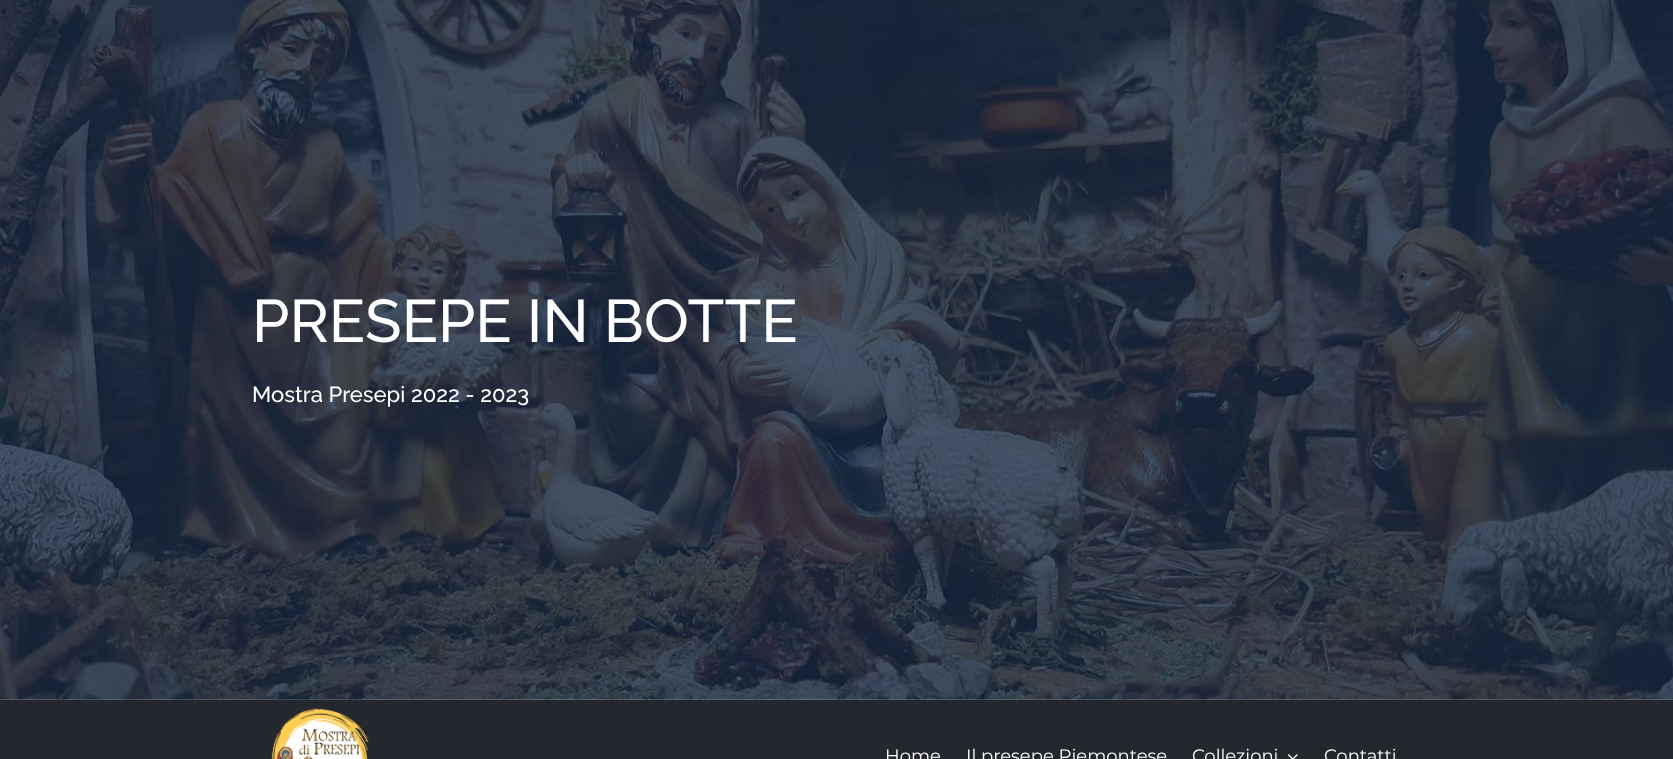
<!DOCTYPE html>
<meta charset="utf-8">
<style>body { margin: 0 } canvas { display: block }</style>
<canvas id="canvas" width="1673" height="759"></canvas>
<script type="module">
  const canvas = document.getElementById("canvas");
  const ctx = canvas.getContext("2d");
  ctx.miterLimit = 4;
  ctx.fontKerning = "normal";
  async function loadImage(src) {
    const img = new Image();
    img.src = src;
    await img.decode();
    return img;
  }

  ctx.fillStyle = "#ffffff";
  ctx.fillRect(0, 0, 1673, 759);
  ctx.drawImage(await loadImage("img1.png"), 0, 0, 1673, 700);
  ctx.font = "100 60px Raleway";
  ctx.fillText("PRESEPE IN BOTTE", 252, 342);
  ctx.font = "100 22px Raleway";
  ctx.fillText("Mostra Presepi 2022 - 2023", 252, 402);
  ctx.fillStyle = "#24272d";
  ctx.fillRect(0, 700, 1673, 59);
  ctx.drawImage(await loadImage("img2.png"), 271, 708, 98, 51);
  ctx.font = "100 18px Montserrat";
  ctx.fillStyle = "#ffffff";
  ctx.fillText("Home", 885, 762);
  ctx.fillText("Il presepe Piemontese", 966, 762);
  ctx.fillText("Collezioni", 1192, 762);
  ctx.drawImage(await loadImage("img3.png"), 1287, 754, 11, 5);
  ctx.fillText("Contatti", 1324, 762);
</script>
